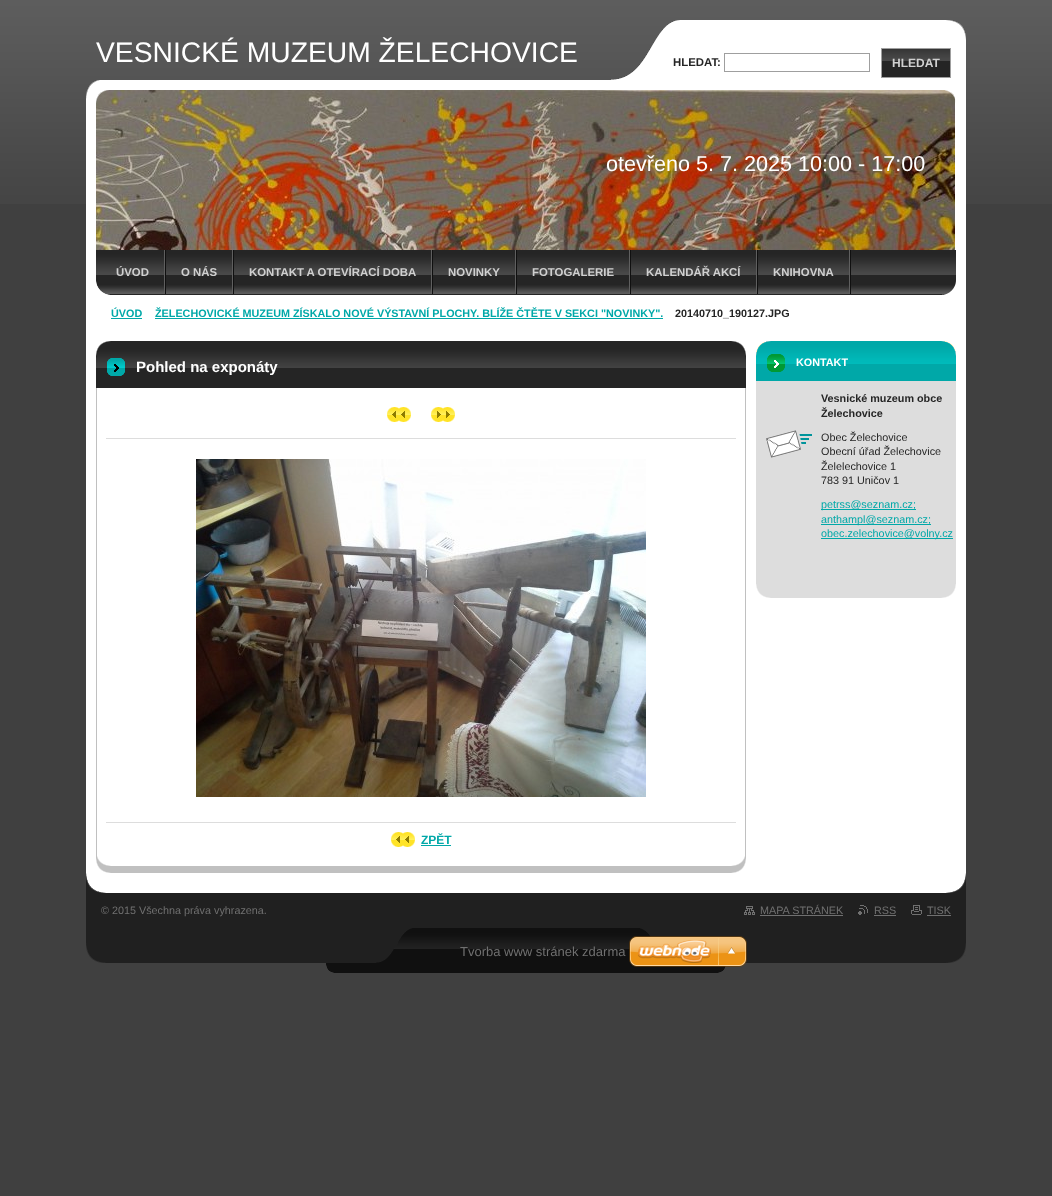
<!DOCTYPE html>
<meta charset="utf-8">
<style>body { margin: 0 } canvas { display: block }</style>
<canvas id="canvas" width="1052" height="1196"></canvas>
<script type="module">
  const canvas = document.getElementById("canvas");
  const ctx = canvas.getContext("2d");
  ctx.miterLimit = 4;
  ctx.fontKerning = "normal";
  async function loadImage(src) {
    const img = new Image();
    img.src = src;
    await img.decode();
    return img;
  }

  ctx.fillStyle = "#404040";
  ctx.fillRect(0, 0, 1052, 1196);
  ctx.drawImage(await loadImage("img1.png"), 0, 0, 1052, 204);
  ctx.font = "28.25px Liberation Sans";
  ctx.fillStyle = "#ffffff";
  ctx.fillText("VESNICKÉ MUZEUM ŽELECHOVICE", 96, 62);
  ctx.drawImage(await loadImage("img2.png"), 86, 80, 880, 170);
  ctx.drawImage(await loadImage("img4.png"), 96, 90, 859, 160);
  ctx.drawImage(await loadImage("img3.png"), 86, 80, 870, 23);
  ctx.font = "21.6px Liberation Sans";
  ctx.fillText("otevřeno 5. 7. 2025 10:00 - 17:00", 606, 171);
  ctx.drawImage(await loadImage("img5.png"), 86, 250, 880, 45);
  ctx.fillStyle = "#101010";
  ctx.fillRect(165, 250, 1, 44);
  ctx.fillStyle = "#5f5f5f";
  ctx.fillRect(164, 250, 1, 44);
  ctx.font = "bold 11.4px Liberation Sans";
  ctx.fillStyle = "#d0d0d0";
  ctx.fillText("ÚVOD", 116, 276);
  ctx.fillStyle = "#101010";
  ctx.fillRect(233, 250, 1, 44);
  ctx.fillStyle = "#5f5f5f";
  ctx.fillRect(232, 250, 1, 44);
  ctx.fillStyle = "#d0d0d0";
  ctx.fillText("O NÁS", 181, 276);
  ctx.fillStyle = "#101010";
  ctx.fillRect(432, 250, 1, 44);
  ctx.fillStyle = "#5f5f5f";
  ctx.fillRect(431, 250, 1, 44);
  ctx.fillStyle = "#d0d0d0";
  ctx.fillText("KONTAKT A OTEVÍRACÍ DOBA", 249, 276);
  ctx.fillStyle = "#101010";
  ctx.fillRect(516, 250, 1, 44);
  ctx.fillStyle = "#5f5f5f";
  ctx.fillRect(515, 250, 1, 44);
  ctx.fillStyle = "#d0d0d0";
  ctx.fillText("NOVINKY", 448, 276);
  ctx.fillStyle = "#101010";
  ctx.fillRect(630, 250, 1, 44);
  ctx.fillStyle = "#5f5f5f";
  ctx.fillRect(629, 250, 1, 44);
  ctx.fillStyle = "#d0d0d0";
  ctx.fillText("FOTOGALERIE", 532, 276);
  ctx.fillStyle = "#101010";
  ctx.fillRect(757, 250, 1, 44);
  ctx.fillStyle = "#5f5f5f";
  ctx.fillRect(756, 250, 1, 44);
  ctx.fillStyle = "#d0d0d0";
  ctx.fillText("KALENDÁŘ AKCÍ", 646, 276);
  ctx.fillStyle = "#101010";
  ctx.fillRect(850, 250, 1, 44);
  ctx.fillStyle = "#5f5f5f";
  ctx.fillRect(849, 250, 1, 44);
  ctx.fillStyle = "#d0d0d0";
  ctx.fillText("KNIHOVNA", 773, 276);
  ctx.drawImage(await loadImage("img6.png"), 96, 281, 13, 14);
  ctx.drawImage(await loadImage("img7.png"), 611, 20, 355, 60);
  ctx.fillStyle = "#252525";
  ctx.fillText("HLEDAT:", 673, 66);
  ctx.strokeStyle = "#9f9f9f";
  ctx.strokeRect(724.5, 53.5, 145, 18);
  ctx.fillRect(882, 61, 68, 16);
  ctx.drawImage(await loadImage("img8.png"), 882, 49, 68, 12);
  ctx.strokeRect(881.5, 48.5, 69, 29);
  ctx.font = "bold 12px Liberation Sans";
  ctx.fillStyle = "#d0d0d0";
  ctx.fillText("HLEDAT", 892, 67);
  ctx.fillStyle = "#ffffff";
  ctx.fillRect(86, 295, 880, 598);
  ctx.font = "bold 10.8px Liberation Sans";
  ctx.fillStyle = "#00a8a8";
  ctx.fillText("ÚVOD", 111, 317);
  ctx.fillRect(111, 318, 31, 1);
  ctx.fillText("ŽELECHOVICKÉ MUZEUM ZÍSKALO NOVÉ VÝSTAVNÍ PLOCHY. BLÍŽE ČTĚTE V SEKCI \"NOVINKY\".", 155, 317);
  ctx.fillRect(155, 318, 508, 1);
  ctx.fillStyle = "#252525";
  ctx.fillText("20140710_190127.JPG", 675, 317);
  ctx.drawImage(await loadImage("img9.png"), 86, 873, 880, 20);
  ctx.drawImage(await loadImage("img10.png"), 96, 341, 650, 15);
  ctx.fillStyle = "#c0c0c0";
  ctx.fillRect(745, 388, 1, 468);
  ctx.fillRect(96, 388, 1, 468);
  ctx.drawImage(await loadImage("img11.png"), 96, 856, 650, 17);
  ctx.fillStyle = "#252525";
  ctx.fillRect(96, 376, 650, 12);
  ctx.drawImage(await loadImage("img12.png"), 96, 356, 650, 20);
  ctx.font = "bold 15px Liberation Sans";
  ctx.fillStyle = "#ffffff";
  ctx.fillText("Pohled na exponáty", 136, 372);
  ctx.fillStyle = "#dddddd";
  ctx.fillRect(106, 438, 630, 1);
  ctx.drawImage(await loadImage("img13.png"), 387, 407, 24, 15);
  ctx.drawImage(await loadImage("img14.png"), 431, 407, 24, 15);
  ctx.drawImage(await loadImage("img15.png"), 196, 459, 450, 338);
  ctx.fillRect(106, 822, 630, 1);
  ctx.drawImage(await loadImage("img13.png"), 391, 832, 24, 15);
  ctx.font = "bold 12px Liberation Sans";
  ctx.fillStyle = "#00a8a8";
  ctx.fillText("ZPĚT", 421, 844);
  ctx.fillRect(421, 845, 30, 1);
  ctx.fillStyle = "#dddddd";
  ctx.fillRect(756, 381, 200, 203);
  ctx.drawImage(await loadImage("img16.png"), 756, 584, 200, 14);
  ctx.drawImage(await loadImage("img18.png"), 756, 341, 200, 31);
  ctx.drawImage(await loadImage("img17.png"), 756, 341, 200, 11);
  ctx.fillStyle = "#00a8a8";
  ctx.fillRect(756, 372, 200, 9);
  ctx.font = "bold 10.8px Liberation Sans";
  ctx.fillStyle = "#ffffff";
  ctx.fillText("KONTAKT", 796, 366);
  ctx.fillStyle = "#252525";
  ctx.fillText("Vesnické muzeum obce", 821, 402);
  ctx.fillText("Želechovice", 821, 417);
  ctx.drawImage(await loadImage("img19.png"), 766, 430, 46, 28);
  ctx.font = "10.8px Liberation Sans";
  ctx.fillText("Obec Želechovice", 821, 441);
  ctx.fillText("Obecní úřad Želechovice", 821, 455);
  ctx.fillText("Želelechovice 1", 821, 470);
  ctx.fillText("783 91 Uničov 1", 821, 484);
  ctx.fillStyle = "#00a8a8";
  ctx.fillRect(821, 509, 95, 1);
  ctx.fillText("petrss@seznam.cz;", 821, 508);
  ctx.fillRect(821, 524, 110, 1);
  ctx.fillText("anthampl@seznam.cz;", 821, 523);
  ctx.fillRect(821, 538, 132, 1);
  ctx.fillText("obec.zelechovice@volny.cz", 821, 537);
  ctx.fillStyle = "#202020";
  ctx.fillRect(86, 893, 880, 35);
  ctx.fillStyle = "#707070";
  ctx.fillText("© 2015 Všechna práva vyhrazena.", 101, 914);
  ctx.drawImage(await loadImage("img20.png"), 744, 906, 11, 9);
  ctx.fillText("MAPA STRÁNEK", 760, 914);
  ctx.fillRect(760, 915, 83, 1);
  ctx.drawImage(await loadImage("img21.png"), 858, 905, 10, 10);
  ctx.fillText("RSS", 874, 914);
  ctx.fillRect(874, 915, 22, 1);
  ctx.drawImage(await loadImage("img22.png"), 911, 905, 11, 10);
  ctx.fillText("TISK", 927, 914);
  ctx.fillRect(927, 915, 24, 1);
  ctx.drawImage(await loadImage("img23.png"), 86, 928, 880, 45);
  ctx.font = "13px Liberation Sans";
  ctx.fillText("Tvorba www stránek zdarma", 460, 956);
  ctx.drawImage(await loadImage("img24.png"), 629, 936, 118, 31);
</script>
